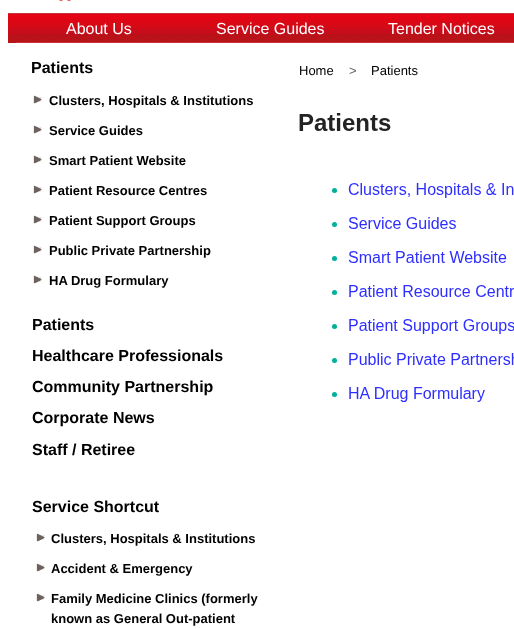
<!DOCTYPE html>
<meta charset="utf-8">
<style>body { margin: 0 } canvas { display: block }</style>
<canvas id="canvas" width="514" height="629"></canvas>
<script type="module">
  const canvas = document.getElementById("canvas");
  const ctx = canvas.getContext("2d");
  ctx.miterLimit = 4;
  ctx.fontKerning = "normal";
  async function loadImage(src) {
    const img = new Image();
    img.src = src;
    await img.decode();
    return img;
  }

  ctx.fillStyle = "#ffffff";
  ctx.fillRect(0, 0, 514, 629);
  ctx.drawImage(await loadImage("img1.png"), 59, 0, 13, 3);
  ctx.drawImage(await loadImage("img2.png"), 8, 13, 506, 30);
  ctx.font = "16px Liberation Sans";
  ctx.fillText("About Us", 66, 34);
  ctx.fillText("Service Guides", 216, 34);
  ctx.fillText("Tender Notices", 388, 34);
  ctx.drawImage(await loadImage("img3.png"), 8, 34, 8, 9);
  ctx.font = "bold 16px Liberation Sans";
  ctx.fillStyle = "#000000";
  ctx.fillText("Patients", 31, 73);
  ctx.drawImage(await loadImage("img4.png"), 33, 95, 9, 9);
  ctx.font = "bold 13px Liberation Sans";
  ctx.fillText("Clusters, Hospitals & Institutions", 49, 105);
  ctx.drawImage(await loadImage("img4.png"), 33, 125, 9, 9);
  ctx.fillText("Service Guides", 49, 135);
  ctx.drawImage(await loadImage("img4.png"), 33, 155, 9, 9);
  ctx.fillText("Smart Patient Website", 49, 165);
  ctx.drawImage(await loadImage("img4.png"), 33, 185, 9, 9);
  ctx.fillText("Patient Resource Centres", 49, 195);
  ctx.drawImage(await loadImage("img4.png"), 33, 215, 9, 9);
  ctx.fillText("Patient Support Groups", 49, 225);
  ctx.drawImage(await loadImage("img4.png"), 33, 245, 9, 9);
  ctx.fillText("Public Private Partnership", 49, 255);
  ctx.drawImage(await loadImage("img4.png"), 33, 275, 9, 9);
  ctx.fillText("HA Drug Formulary", 49, 285);
  ctx.font = "bold 16px Liberation Sans";
  ctx.fillText("Patients", 32, 330);
  ctx.fillText("Healthcare Professionals", 32, 361);
  ctx.fillText("Community Partnership", 32, 392);
  ctx.fillText("Corporate News", 32, 423);
  ctx.fillText("Staff / Retiree", 32, 455);
  ctx.fillText("Service Shortcut", 32, 512);
  ctx.drawImage(await loadImage("img4.png"), 36, 533, 9, 9);
  ctx.font = "bold 13px Liberation Sans";
  ctx.fillText("Clusters, Hospitals & Institutions", 51, 543);
  ctx.drawImage(await loadImage("img4.png"), 36, 563, 9, 9);
  ctx.fillText("Accident & Emergency", 51, 573);
  ctx.drawImage(await loadImage("img4.png"), 36, 593, 9, 9);
  ctx.fillText("Family Medicine Clinics (formerly", 51, 603);
  ctx.fillText("known as General Out-patient", 51, 623);
  ctx.font = "13px Liberation Sans";
  ctx.fillText("Home", 299, 75);
  ctx.fillStyle = "#666666";
  ctx.fillText(">", 349, 75);
  ctx.fillStyle = "#000000";
  ctx.fillText("Patients", 371, 75);
  ctx.drawImage(await loadImage("img5.png"), 299, 113, 215, 289);
</script>
